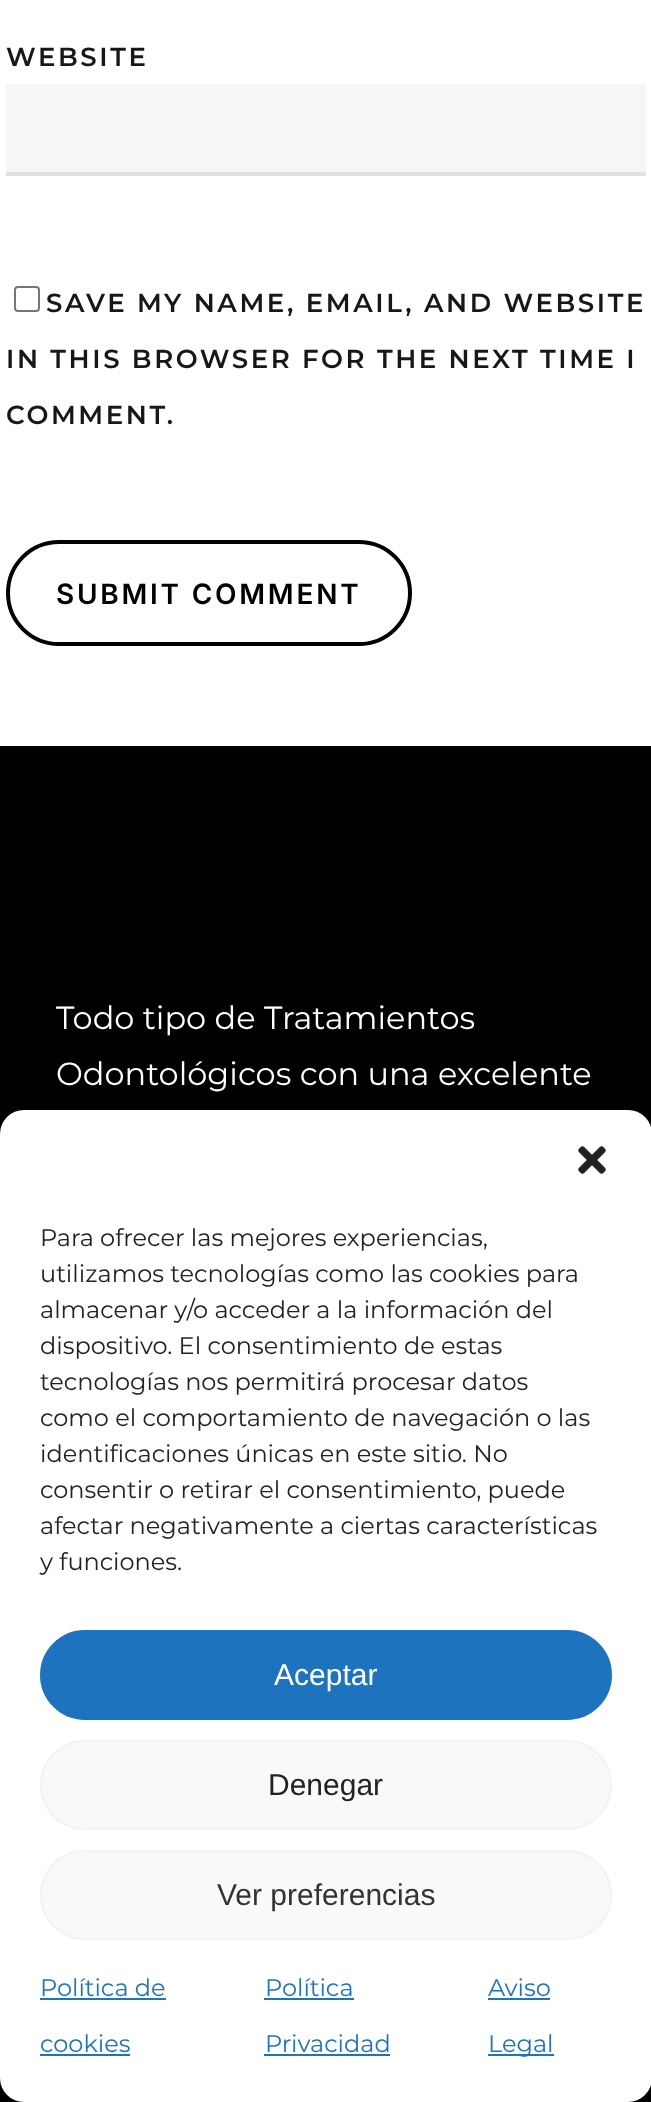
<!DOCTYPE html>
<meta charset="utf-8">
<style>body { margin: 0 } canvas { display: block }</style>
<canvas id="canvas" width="651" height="2102"></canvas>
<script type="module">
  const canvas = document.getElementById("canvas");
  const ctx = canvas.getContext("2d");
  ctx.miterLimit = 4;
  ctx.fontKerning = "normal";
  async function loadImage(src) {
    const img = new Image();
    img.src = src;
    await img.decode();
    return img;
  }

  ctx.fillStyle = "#ffffff";
  ctx.fillRect(0, 0, 651, 2102);
  ctx.letterSpacing = "2.6px";
  ctx.font = "600 26px Montserrat";
  ctx.fillStyle = "#191614";
  ctx.fillText("WEBSITE", 6, 66);
  ctx.fillStyle = "#f6f6f6";
  ctx.fillRect(6, 84, 640, 88);
  ctx.fillStyle = "#e0e0e0";
  ctx.fillRect(6, 172, 640, 4);
  ctx.beginPath();
  ctx.roundRect(15, 287, 24, 24, 3);
  ctx.strokeStyle = "#767676";
  ctx.lineWidth = 2;
  ctx.stroke();
  ctx.fillStyle = "#191614";
  ctx.fillText("SAVE MY NAME, EMAIL, AND WEBSITE", 46, 312);
  ctx.fillText("IN THIS BROWSER FOR THE NEXT TIME I", 6, 368);
  ctx.fillText("COMMENT.", 6, 424);
  ctx.beginPath();
  ctx.roundRect(8, 542, 402, 102, 51);
  ctx.strokeStyle = "#000000";
  ctx.lineWidth = 4;
  ctx.stroke();
  ctx.letterSpacing = "2.75px";
  ctx.font = "600 28px Inter";
  ctx.fillStyle = "#000000";
  ctx.fillText("SUBMIT COMMENT", 56, 604);
  ctx.fillRect(0, 746, 651, 1356);
  ctx.letterSpacing = "0px";
  ctx.font = "32px Montserrat";
  ctx.fillStyle = "#ffffff";
  ctx.fillText("Todo tipo de Tratamientos", 56, 1029);
  ctx.fillText("Odontológicos con una excelente", 56, 1085);
  ctx.beginPath();
  ctx.roundRect(0, 1110, 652, 992, 24);
  ctx.fill();
  ctx.drawImage(await loadImage("img1.png"), 578, 1146, 28, 28);
  ctx.font = "24px Montserrat";
  ctx.fillStyle = "#222222";
  ctx.fillText("Para ofrecer las mejores experiencias,", 40, 1246);
  ctx.fillText("utilizamos tecnologías como las cookies para", 40, 1282);
  ctx.fillText("almacenar y/o acceder a la información del", 40, 1318);
  ctx.fillText("dispositivo. El consentimiento de estas", 40, 1354);
  ctx.fillText("tecnologías nos permitirá procesar datos", 40, 1390);
  ctx.fillText("como el comportamiento de navegación o las", 40, 1426);
  ctx.fillText("identificaciones únicas en este sitio. No", 40, 1462);
  ctx.fillText("consentir o retirar el consentimiento, puede", 40, 1498);
  ctx.fillText("afectar negativamente a ciertas características", 40, 1534);
  ctx.fillText("y funciones.", 40, 1570);
  ctx.fillStyle = "#1e73be";
  ctx.beginPath();
  ctx.roundRect(41, 1631, 570, 88, 44);
  ctx.fill();
  ctx.strokeStyle = "#1e73be";
  ctx.lineWidth = 2;
  ctx.stroke();
  ctx.font = "30px Liberation Sans";
  ctx.fillStyle = "#ffffff";
  ctx.fillText("Aceptar", 274, 1685);
  ctx.fillStyle = "#f9f9f9";
  ctx.beginPath();
  ctx.roundRect(41, 1741, 570, 88, 44);
  ctx.fill();
  ctx.strokeStyle = "#f2f2f2";
  ctx.stroke();
  ctx.fillStyle = "#222222";
  ctx.fillText("Denegar", 268, 1795);
  ctx.fillStyle = "#f9f9f9";
  ctx.beginPath();
  ctx.roundRect(41, 1851, 570, 88, 44);
  ctx.fill();
  ctx.stroke();
  ctx.fillStyle = "#333333";
  ctx.fillText("Ver preferencias", 217, 1905);
  ctx.font = "24px Montserrat";
  ctx.fillStyle = "#1e73be";
  ctx.fillText("Política de", 40, 1996);
  ctx.fillRect(40, 1998, 126, 2);
  ctx.fillText("cookies", 40, 2052);
  ctx.fillRect(40, 2054, 90, 2);
  ctx.fillText("Política", 265, 1996);
  ctx.fillRect(264, 1998, 90, 2);
  ctx.fillText("Privacidad", 265, 2052);
  ctx.fillRect(264, 2054, 126, 2);
  ctx.fillText("Aviso", 488, 1996);
  ctx.fillRect(488, 1998, 62, 2);
  ctx.fillRect(488, 2054, 66, 2);
  ctx.fillText("Legal", 488, 2052);
</script>
